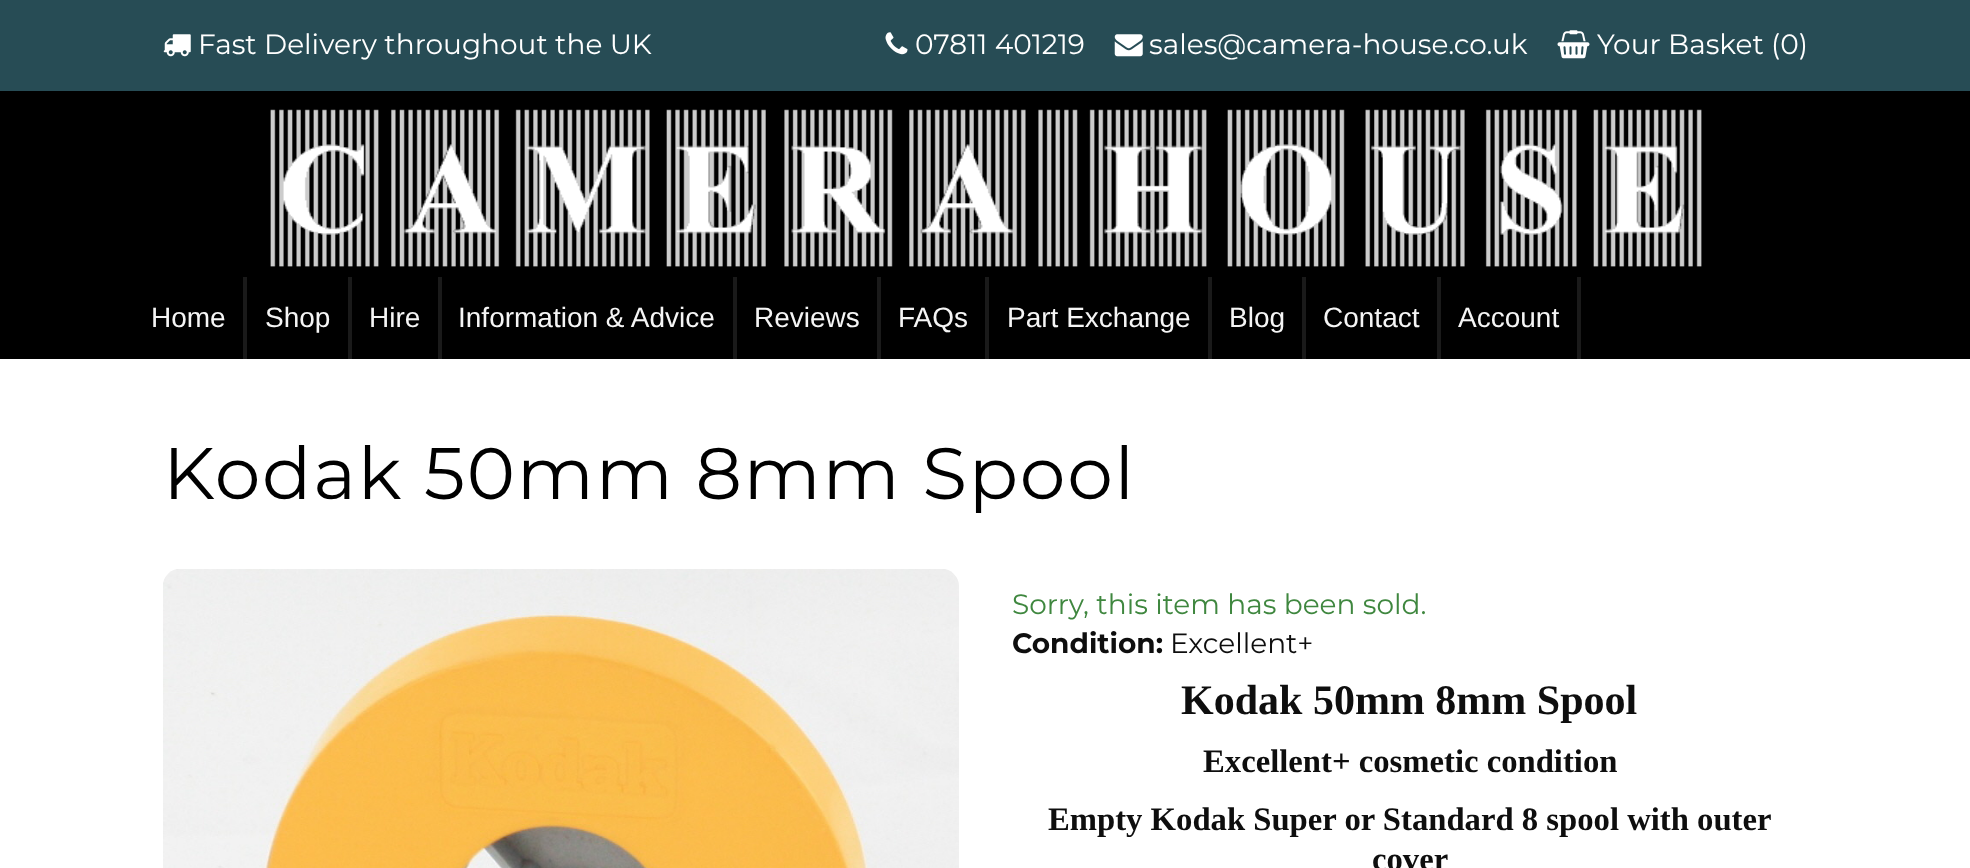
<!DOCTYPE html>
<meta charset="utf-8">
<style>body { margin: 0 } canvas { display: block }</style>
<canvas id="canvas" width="1970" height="868"></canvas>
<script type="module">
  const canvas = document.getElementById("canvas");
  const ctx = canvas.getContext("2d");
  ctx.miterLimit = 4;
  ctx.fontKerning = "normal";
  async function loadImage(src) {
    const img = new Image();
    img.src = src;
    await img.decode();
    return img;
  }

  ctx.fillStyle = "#ffffff";
  ctx.fillRect(0, 0, 1970, 868);
  ctx.fillStyle = "#274c55";
  ctx.fillRect(0, 0, 1970, 91);
  ctx.drawImage(await loadImage("img1.png"), 163, 34, 28, 23);
  ctx.font = "28px Montserrat";
  ctx.fillStyle = "#ffffff";
  ctx.fillText("Fast Delivery throughout the UK", 198, 54);
  ctx.drawImage(await loadImage("img2.png"), 885, 32, 23, 23);
  ctx.fillText("07811 401219", 915, 54);
  ctx.drawImage(await loadImage("img3.png"), 1114, 34, 29, 23);
  ctx.fillText("sales@camera-house.co.uk", 1149, 54);
  ctx.drawImage(await loadImage("img4.png"), 1557, 30, 33, 29);
  ctx.fillText("Your Basket (0)", 1597, 54);
  ctx.fillStyle = "#000000";
  ctx.fillRect(0, 91, 1970, 268);
  ctx.drawImage(await loadImage("img5.png"), 270, 109, 1432, 158);
  ctx.fillStyle = "#1a1a1a";
  ctx.fillRect(243, 277, 4, 82);
  ctx.font = "28px Liberation Sans";
  ctx.fillStyle = "#f5f5f5";
  ctx.fillText("Home", 151, 327);
  ctx.fillStyle = "#1a1a1a";
  ctx.fillRect(348, 277, 4, 82);
  ctx.fillStyle = "#f5f5f5";
  ctx.fillText("Shop", 265, 327);
  ctx.fillStyle = "#1a1a1a";
  ctx.fillRect(438, 277, 4, 82);
  ctx.fillStyle = "#f5f5f5";
  ctx.fillText("Hire", 369, 327);
  ctx.fillStyle = "#1a1a1a";
  ctx.fillRect(733, 277, 4, 82);
  ctx.fillStyle = "#f5f5f5";
  ctx.fillText("Information & Advice", 458, 327);
  ctx.fillStyle = "#1a1a1a";
  ctx.fillRect(877, 277, 4, 82);
  ctx.fillStyle = "#f5f5f5";
  ctx.fillText("Reviews", 754, 327);
  ctx.fillStyle = "#1a1a1a";
  ctx.fillRect(985, 277, 4, 82);
  ctx.fillStyle = "#f5f5f5";
  ctx.fillText("FAQs", 898, 327);
  ctx.fillStyle = "#1a1a1a";
  ctx.fillRect(1208, 277, 4, 82);
  ctx.fillStyle = "#f5f5f5";
  ctx.fillText("Part Exchange", 1007, 327);
  ctx.fillStyle = "#1a1a1a";
  ctx.fillRect(1302, 277, 4, 82);
  ctx.fillStyle = "#f5f5f5";
  ctx.fillText("Blog", 1229, 327);
  ctx.fillStyle = "#1a1a1a";
  ctx.fillRect(1437, 277, 4, 82);
  ctx.fillStyle = "#f5f5f5";
  ctx.fillText("Contact", 1323, 327);
  ctx.fillStyle = "#1a1a1a";
  ctx.fillRect(1577, 277, 4, 82);
  ctx.fillStyle = "#f5f5f5";
  ctx.fillText("Account", 1458, 327);
  ctx.letterSpacing = "1.75px";
  ctx.font = "72.75px Montserrat";
  ctx.fillStyle = "#000000";
  ctx.fillText("Kodak 50mm 8mm Spool", 163, 499);
  ctx.drawImage(await loadImage("img6.png"), 163, 569, 796, 299);
  ctx.letterSpacing = "0px";
  ctx.font = "28px Montserrat";
  ctx.fillStyle = "#3f873f";
  ctx.fillText("Sorry, this item has been sold.", 1012, 614);
  ctx.font = "bold 28px Montserrat";
  ctx.fillStyle = "#0e0e0e";
  ctx.fillText("Condition:", 1012, 653);
  ctx.font = "28px Montserrat";
  ctx.fillText("Excellent+", 1170, 653);
  ctx.font = "bold 42px Liberation Serif";
  ctx.fillText("Kodak 50mm 8mm Spool", 1181, 714);
  ctx.font = "bold 32.7px Liberation Serif";
  ctx.fillText("Excellent+ cosmetic condition", 1203, 772);
  ctx.fillText("Empty Kodak Super or Standard 8 spool with outer", 1048, 830);
  ctx.fillText("cover", 1372, 870);
</script>
